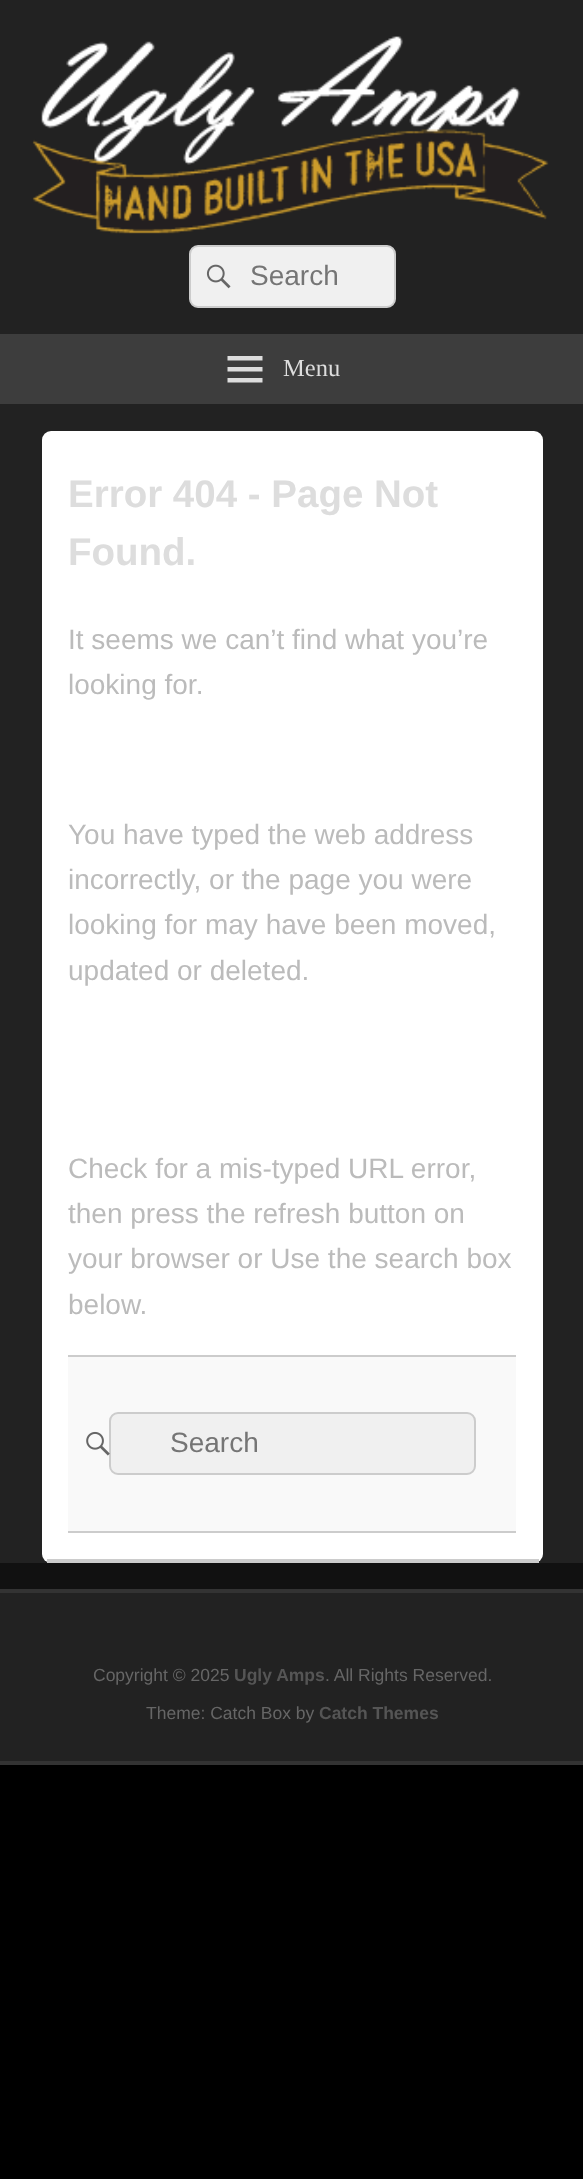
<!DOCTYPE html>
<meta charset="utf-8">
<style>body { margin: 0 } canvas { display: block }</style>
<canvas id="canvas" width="583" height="2179"></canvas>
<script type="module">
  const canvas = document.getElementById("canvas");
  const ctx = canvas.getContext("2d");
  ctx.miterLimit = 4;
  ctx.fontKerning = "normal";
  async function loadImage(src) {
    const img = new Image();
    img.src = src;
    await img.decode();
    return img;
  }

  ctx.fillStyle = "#000000";
  ctx.fillRect(0, 0, 583, 2179);
  ctx.fillStyle = "#111111";
  ctx.fillRect(0, 1563, 583, 26);
  ctx.fillStyle = "#222222";
  ctx.fillRect(0, 0, 583, 334);
  ctx.drawImage(await loadImage("img1.png"), 32, 36, 517, 198);
  ctx.fillStyle = "#f0f0f0";
  ctx.beginPath();
  ctx.roundRect(190, 246, 205, 61, 8);
  ctx.fill();
  ctx.strokeStyle = "#cccccc";
  ctx.lineWidth = 2;
  ctx.stroke();
  ctx.drawImage(await loadImage("img2.png"), 206, 264, 25, 25);
  ctx.font = "28px Liberation Sans";
  ctx.fillStyle = "#757575";
  ctx.fillText("Search", 250, 285);
  ctx.fillStyle = "#3d3d3d";
  ctx.fillRect(0, 334, 583, 70);
  ctx.fillStyle = "#dddddd";
  ctx.beginPath();
  ctx.moveTo(227.5, 382.5);
  ctx.lineTo(227.5, 378);
  ctx.lineTo(262.5, 378);
  ctx.lineTo(262.5, 382.5);
  ctx.closePath();
  ctx.moveTo(227.5, 356);
  ctx.lineTo(262.5, 356);
  ctx.lineTo(262.5, 360.5);
  ctx.lineTo(227.5, 360.5);
  ctx.closePath();
  ctx.moveTo(227.5, 371.5);
  ctx.lineTo(227.5, 367);
  ctx.lineTo(262.5, 367);
  ctx.lineTo(262.5, 371.5);
  ctx.closePath();
  ctx.fill();
  ctx.font = "24.5px Liberation Serif";
  ctx.fillText("Menu", 283, 376);
  ctx.fillStyle = "#222222";
  ctx.fillRect(0, 404, 583, 1159);
  ctx.fillStyle = "#ffffff";
  ctx.beginPath();
  ctx.roundRect(42, 431, 501, 1132, 9);
  ctx.fill();
  ctx.fillStyle = "#cccccc";
  ctx.fillRect(47, 1559, 492, 4);
  ctx.font = "bold 38.5px Liberation Sans";
  ctx.fillStyle = "#dddddd";
  ctx.fillText("Error 404 - Page Not", 68, 507);
  ctx.fillText("Found.", 68, 565);
  ctx.font = "28px Liberation Sans";
  ctx.fillStyle = "#bbbbbb";
  ctx.fillText("It seems we can’t find what you’re", 68, 649);
  ctx.fillText("looking for.", 68, 694);
  ctx.fillText("You have typed the web address", 68, 844);
  ctx.fillText("incorrectly, or the page you were", 68, 889);
  ctx.fillText("looking for may have been moved,", 68, 934);
  ctx.fillText("updated or deleted.", 68, 980);
  ctx.fillText("Check for a mis-typed URL error,", 68, 1178);
  ctx.fillText("then press the refresh button on", 68, 1223);
  ctx.fillText("your browser or Use the search box", 68, 1268);
  ctx.fillText("below.", 68, 1314);
  ctx.fillStyle = "#f9f9f9";
  ctx.fillRect(68, 1357, 448, 174);
  ctx.fillStyle = "#cccccc";
  ctx.fillRect(68, 1355, 448, 2);
  ctx.fillRect(68, 1531, 448, 2);
  ctx.fillStyle = "#f0f0f0";
  ctx.beginPath();
  ctx.roundRect(110, 1413, 365, 61, 8);
  ctx.fill();
  ctx.stroke();
  ctx.drawImage(await loadImage("img3.png"), 86, 1431, 24, 25);
  ctx.fillStyle = "#757575";
  ctx.fillText("Search", 170, 1452);
  ctx.fillStyle = "#333333";
  ctx.fillRect(0, 1589, 583, 4);
  ctx.fillStyle = "#222222";
  ctx.fillRect(0, 1593, 583, 168);
  ctx.fillStyle = "#333333";
  ctx.fillRect(0, 1761, 583, 4);
  ctx.font = "17.5px Liberation Sans";
  ctx.fillStyle = "#666666";
  ctx.fillText("Copyright © 2025", 93, 1681);
  ctx.font = "bold 17.5px Liberation Sans";
  ctx.fillStyle = "#555555";
  ctx.fillText("Ugly Amps", 234, 1681);
  ctx.font = "17.5px Liberation Sans";
  ctx.fillStyle = "#666666";
  ctx.fillText(". All Rights Reserved.", 325, 1681);
  ctx.fillText("Theme: Catch Box by", 146, 1719);
  ctx.font = "bold 17.5px Liberation Sans";
  ctx.fillStyle = "#555555";
  ctx.fillText("Catch Themes", 319, 1719);
</script>
